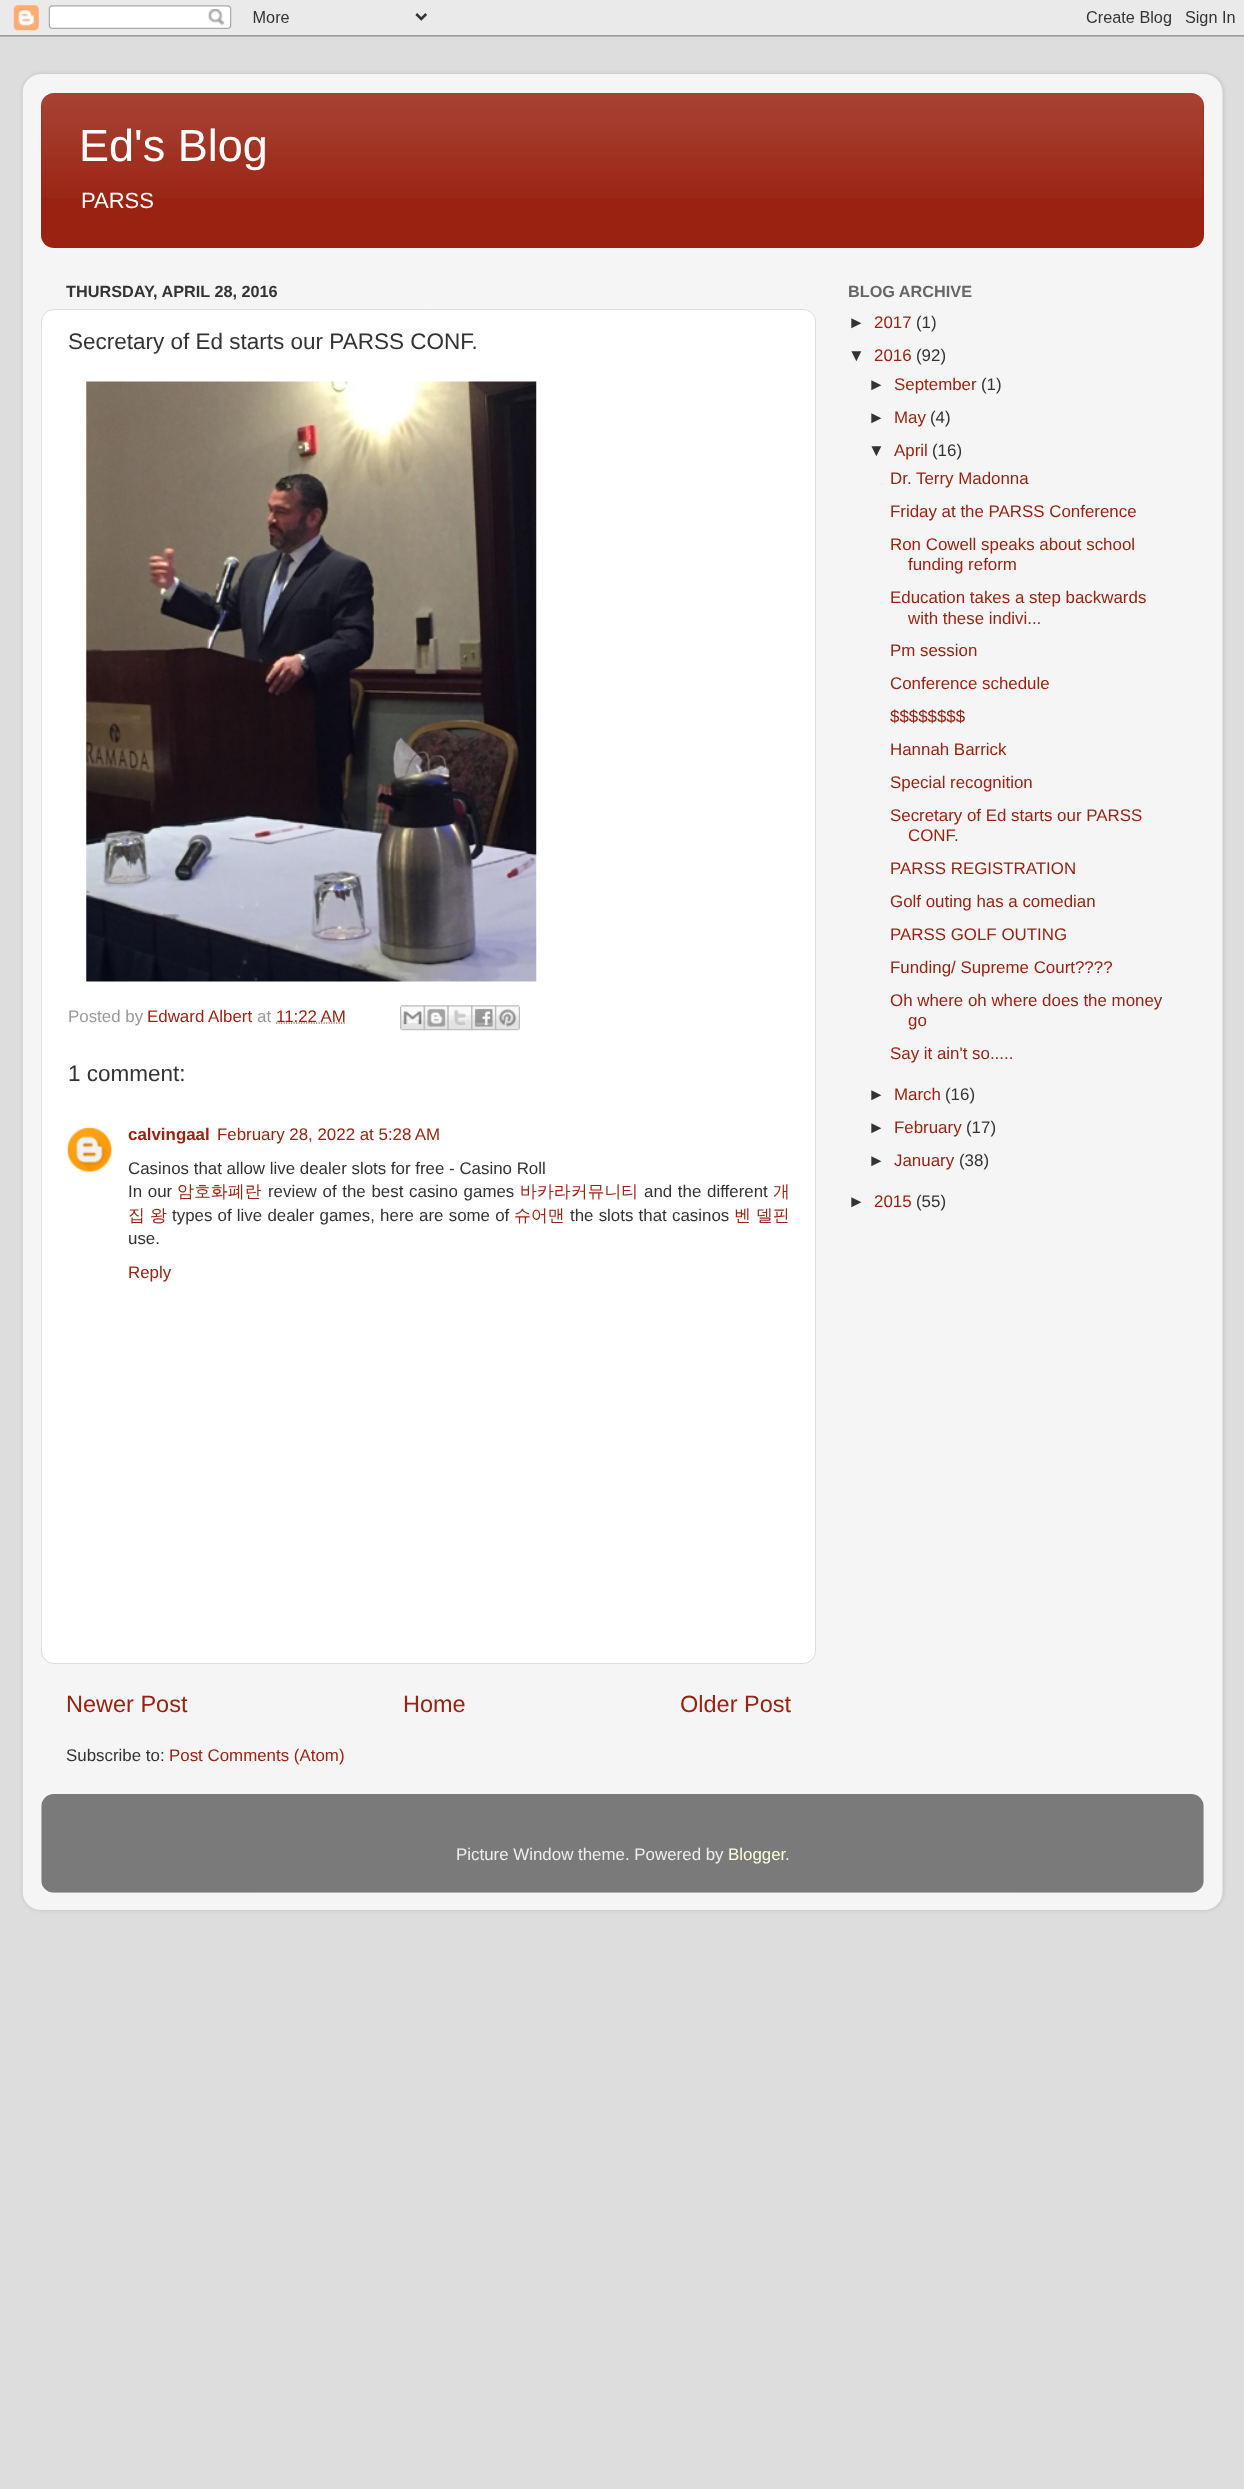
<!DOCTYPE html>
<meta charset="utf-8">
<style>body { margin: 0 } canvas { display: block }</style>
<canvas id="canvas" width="1244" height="2489"></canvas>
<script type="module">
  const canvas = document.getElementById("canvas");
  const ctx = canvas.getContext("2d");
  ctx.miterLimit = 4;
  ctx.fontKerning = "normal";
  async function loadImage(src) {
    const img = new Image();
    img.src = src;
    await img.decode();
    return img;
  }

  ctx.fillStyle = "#dddddd";
  ctx.fillRect(0, 0, 1244, 2489);
  ctx.drawImage(await loadImage("img1.png"), 0, 0, 1244, 37);
  ctx.save();
  ctx.beginPath();
  ctx.moveTo(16, 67);
  ctx.lineTo(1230, 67);
  ctx.lineTo(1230, 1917);
  ctx.lineTo(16, 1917);
  ctx.closePath();
  ctx.moveTo(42, 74);
  ctx.lineTo(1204, 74);
  ctx.bezierCurveTo(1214.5, 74, 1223, 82.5, 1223, 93);
  ctx.lineTo(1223, 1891);
  ctx.bezierCurveTo(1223, 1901.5, 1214.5, 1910, 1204, 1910);
  ctx.lineTo(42, 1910);
  ctx.bezierCurveTo(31.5, 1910, 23, 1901.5, 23, 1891);
  ctx.lineTo(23, 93);
  ctx.bezierCurveTo(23, 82.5, 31.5, 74, 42, 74);
  ctx.closePath();
  ctx.clip("evenodd");
  ctx.fillStyle = "rgba(0, 0, 0, 0.15)";
  ctx.filter = "blur(2px)";
  ctx.beginPath();
  ctx.roundRect(23, 74, 1200, 1836, 19);
  ctx.fill();
  ctx.filter = "none";
  ctx.restore();
  ctx.drawImage(await loadImage("img2.png"), 22, 74, 1201, 1836);
  ctx.fillStyle = "#992211";
  ctx.beginPath();
  ctx.roundRect(41, 93, 1163, 155, 13);
  ctx.fill();
  ctx.drawImage(await loadImage("img3.png"), 41, 93, 1163, 105);
  ctx.font = "45px Liberation Sans";
  ctx.fillStyle = "#ffffff";
  ctx.fillText("Ed's Blog", 79, 161);
  ctx.font = "22px Liberation Sans";
  ctx.fillText("PARSS", 81, 208);
  ctx.font = "bold 16.25px Liberation Sans";
  ctx.fillStyle = "#333333";
  ctx.fillText("THURSDAY, APRIL 28, 2016", 66, 297);
  ctx.fillStyle = "#ffffff";
  ctx.beginPath();
  ctx.roundRect(41.5, 309.5, 774, 1354, 12.5);
  ctx.fill();
  ctx.strokeStyle = "#dddddd";
  ctx.stroke();
  ctx.font = "22.5px Liberation Sans";
  ctx.fillStyle = "#333333";
  ctx.fillText("Secretary of Ed starts our PARSS CONF.", 68, 349);
  ctx.drawImage(await loadImage("img4.png"), 86, 381, 451, 601);
  ctx.font = "16.9px Liberation Sans";
  ctx.fillStyle = "#999999";
  ctx.fillText("Posted by", 68, 1022);
  ctx.fillStyle = "#992211";
  ctx.fillText("Edward Albert", 147, 1022);
  ctx.fillStyle = "#999999";
  ctx.fillText("at", 257, 1022);
  ctx.fillStyle = "#992211";
  ctx.fillText("11:22 AM", 276, 1022);
  ctx.beginPath();
  ctx.moveTo(276, 1023);
  ctx.lineTo(345.5, 1023);
  ctx.strokeStyle = "#992211";
  ctx.lineWidth = 1.2;
  ctx.setLineDash([1.25, 1.25]);
  ctx.stroke();
  ctx.drawImage(await loadImage("img5.png"), 400, 1005, 25, 26);
  ctx.drawImage(await loadImage("img6.png"), 423, 1005, 26, 26);
  ctx.drawImage(await loadImage("img7.png"), 447, 1005, 26, 26);
  ctx.drawImage(await loadImage("img8.png"), 471, 1005, 26, 26);
  ctx.drawImage(await loadImage("img9.png"), 495, 1005, 25, 26);
  ctx.font = "22.5px Liberation Sans";
  ctx.fillStyle = "#333333";
  ctx.fillText("1 comment:", 68, 1081);
  ctx.drawImage(await loadImage("img10.png"), 67, 1127, 45, 45);
  ctx.font = "bold 16.9px Liberation Sans";
  ctx.fillStyle = "#992211";
  ctx.fillText("calvingaal", 128, 1140);
  ctx.font = "16.9px Liberation Sans";
  ctx.fillText("February 28, 2022 at 5:28 AM", 217, 1140);
  ctx.fillStyle = "#333333";
  ctx.fillText("Casinos that allow live dealer slots for free - Casino Roll", 128, 1174);
  ctx.wordSpacing = "1px";
  ctx.fillText("In our", 128, 1197);
  ctx.wordSpacing = "0px";
  ctx.font = "500 16.9px WenQuanYi Zen Hei";
  ctx.fillStyle = "#992211";
  ctx.fillText("암호화폐란", 177, 1197);
  ctx.wordSpacing = "1px";
  ctx.font = "16.9px Liberation Sans";
  ctx.fillStyle = "#333333";
  ctx.fillText("review of the best casino games", 268, 1197);
  ctx.wordSpacing = "0px";
  ctx.font = "500 16.9px WenQuanYi Zen Hei";
  ctx.fillStyle = "#992211";
  ctx.fillText("바카라커뮤니티", 520, 1197);
  ctx.wordSpacing = "1px";
  ctx.font = "16.9px Liberation Sans";
  ctx.fillStyle = "#333333";
  ctx.fillText("and the different", 644, 1197);
  ctx.wordSpacing = "0px";
  ctx.font = "500 16.9px WenQuanYi Zen Hei";
  ctx.fillStyle = "#992211";
  ctx.fillText("개", 773, 1197);
  ctx.fillText("집 왕", 128, 1221);
  ctx.wordSpacing = "0.5px";
  ctx.font = "16.9px Liberation Sans";
  ctx.fillStyle = "#333333";
  ctx.fillText("types of live dealer games, here are some of", 172, 1221);
  ctx.wordSpacing = "0px";
  ctx.font = "500 16.9px WenQuanYi Zen Hei";
  ctx.fillStyle = "#992211";
  ctx.fillText("슈어맨", 514, 1221);
  ctx.wordSpacing = "0.5px";
  ctx.font = "16.9px Liberation Sans";
  ctx.fillStyle = "#333333";
  ctx.fillText("the slots that casinos", 570, 1221);
  ctx.wordSpacing = "0px";
  ctx.font = "500 16.9px WenQuanYi Zen Hei";
  ctx.fillStyle = "#992211";
  ctx.fillText("벤 델핀", 734, 1221);
  ctx.font = "16.9px Liberation Sans";
  ctx.fillStyle = "#333333";
  ctx.fillText("use.", 128, 1244);
  ctx.fillStyle = "#992211";
  ctx.fillText("Reply", 128, 1278);
  ctx.font = "23.5px Liberation Sans";
  ctx.fillText("Newer Post", 66, 1712);
  ctx.fillText("Home", 403, 1712);
  ctx.fillText("Older Post", 680, 1712);
  ctx.font = "16.9px Liberation Sans";
  ctx.fillStyle = "#333333";
  ctx.fillText("Subscribe to:", 66, 1761);
  ctx.fillStyle = "#992211";
  ctx.fillText("Post Comments (Atom)", 169, 1761);
  ctx.font = "bold 16.25px Liberation Sans";
  ctx.fillStyle = "#666666";
  ctx.fillText("BLOG ARCHIVE", 848, 297);
  ctx.font = "16.9px Liberation Sans";
  ctx.fillStyle = "#333333";
  ctx.fillText("►", 848, 328);
  ctx.fillStyle = "#992211";
  ctx.fillText("2017", 874, 328);
  ctx.fillStyle = "#333333";
  ctx.fillText("(1)", 916, 328);
  ctx.fillText("▼", 848, 361);
  ctx.fillStyle = "#992211";
  ctx.fillText("2016", 874, 361);
  ctx.fillStyle = "#333333";
  ctx.fillText("(92)", 916, 361);
  ctx.fillText("►", 868, 390);
  ctx.fillStyle = "#992211";
  ctx.fillText("September", 894, 390);
  ctx.fillStyle = "#333333";
  ctx.fillText("(1)", 981, 390);
  ctx.fillText("►", 868, 423);
  ctx.fillStyle = "#992211";
  ctx.fillText("May", 894, 423);
  ctx.fillStyle = "#333333";
  ctx.fillText("(4)", 930, 423);
  ctx.fillText("▼", 868, 456);
  ctx.fillStyle = "#992211";
  ctx.fillText("April", 894, 456);
  ctx.fillStyle = "#333333";
  ctx.fillText("(16)", 932, 456);
  ctx.fillStyle = "#992211";
  ctx.fillText("Dr. Terry Madonna", 890, 484);
  ctx.fillText("Friday at the PARSS Conference", 890, 517);
  ctx.fillText("Ron Cowell speaks about school", 890, 550);
  ctx.fillText("funding reform", 908, 570);
  ctx.fillText("Education takes a step backwards", 890, 603);
  ctx.fillText("with these indivi...", 908, 624);
  ctx.fillText("Pm session", 890, 656);
  ctx.fillText("Conference schedule", 890, 689);
  ctx.fillText("$$$$$$$$", 890, 722);
  ctx.fillText("Hannah Barrick", 890, 755);
  ctx.fillText("Special recognition", 890, 788);
  ctx.fillText("Secretary of Ed starts our PARSS", 890, 821);
  ctx.fillText("CONF.", 908, 841);
  ctx.fillText("PARSS REGISTRATION", 890, 874);
  ctx.fillText("Golf outing has a comedian", 890, 907);
  ctx.fillText("PARSS GOLF OUTING", 890, 940);
  ctx.fillText("Funding/ Supreme Court????", 890, 973);
  ctx.fillText("Oh where oh where does the money", 890, 1006);
  ctx.fillText("go", 908, 1026);
  ctx.fillText("Say it ain't so.....", 890, 1059);
  ctx.fillStyle = "#333333";
  ctx.fillText("►", 868, 1100);
  ctx.fillStyle = "#992211";
  ctx.fillText("March", 894, 1100);
  ctx.fillStyle = "#333333";
  ctx.fillText("(16)", 945, 1100);
  ctx.fillText("►", 868, 1133);
  ctx.fillStyle = "#992211";
  ctx.fillText("February", 894, 1133);
  ctx.fillStyle = "#333333";
  ctx.fillText("(17)", 966, 1133);
  ctx.fillText("►", 868, 1166);
  ctx.fillStyle = "#992211";
  ctx.fillText("January", 894, 1166);
  ctx.fillStyle = "#333333";
  ctx.fillText("(38)", 959, 1166);
  ctx.fillText("►", 848, 1207);
  ctx.fillStyle = "#992211";
  ctx.fillText("2015", 874, 1207);
  ctx.fillStyle = "#333333";
  ctx.fillText("(55)", 916, 1207);
  ctx.drawImage(await loadImage("img11.png"), 41, 1794, 1163, 99);
  ctx.fillStyle = "#eeeeee";
  ctx.fillText("Picture Window theme. Powered by", 456, 1860);
  ctx.fillStyle = "#ffffdd";
  ctx.fillText("Blogger", 728, 1860);
  ctx.fillStyle = "#eeeeee";
  ctx.fillText(".", 785, 1860);
</script>
